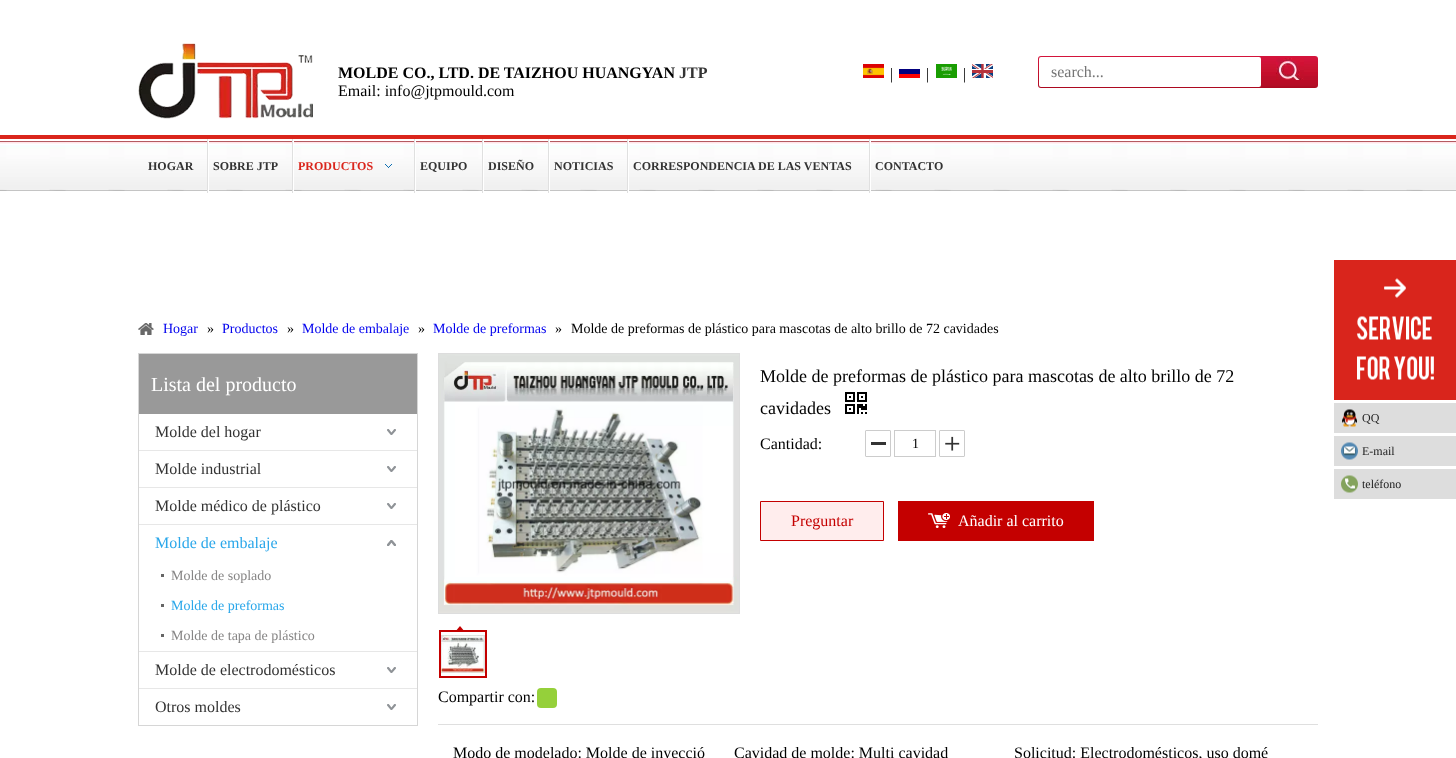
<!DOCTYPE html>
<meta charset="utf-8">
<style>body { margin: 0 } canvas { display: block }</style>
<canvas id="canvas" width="1456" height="758"></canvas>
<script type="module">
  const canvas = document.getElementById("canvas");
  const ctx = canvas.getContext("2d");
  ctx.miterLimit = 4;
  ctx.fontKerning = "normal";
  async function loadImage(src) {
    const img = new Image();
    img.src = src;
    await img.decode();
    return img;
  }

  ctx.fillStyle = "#ffffff";
  ctx.fillRect(0, 0, 1456, 758);
  ctx.drawImage(await loadImage("img1.png"), 138, 43, 175, 76);
  ctx.font = "bold 16px Liberation Serif";
  ctx.fillStyle = "#000000";
  ctx.fillText("MOLDE CO., LTD. DE TAIZHOU HUANGYAN", 338, 78);
  ctx.fillStyle = "#333333";
  ctx.fillText("JTP", 679, 78);
  ctx.font = "16px Liberation Serif";
  ctx.fillStyle = "#000000";
  ctx.fillText("Email: info@jtpmould.com", 338, 96);
  ctx.drawImage(await loadImage("img2.png"), 863, 64, 21, 14);
  ctx.fillText("|", 890, 79);
  ctx.drawImage(await loadImage("img3.png"), 899, 69, 21, 9);
  ctx.fillText("|", 926, 79);
  ctx.drawImage(await loadImage("img4.png"), 936, 64, 21, 14);
  ctx.fillText("|", 963, 79);
  ctx.drawImage(await loadImage("img5.png"), 972, 64, 21, 14);
  ctx.drawImage(await loadImage("img6.png"), 1038, 56, 280, 32);
  ctx.fillStyle = "#ffffff";
  ctx.beginPath();
  ctx.roundRect(1039, 57, 222, 30, 2);
  ctx.fill();
  ctx.fillStyle = "#757575";
  ctx.fillText("search...", 1051, 77);
  ctx.drawImage(await loadImage("img7.png"), 1276, 58, 28, 22);
  ctx.drawImage(await loadImage("img8.png"), 0, 141, 1456, 50);
  ctx.fillStyle = "#da251c";
  ctx.fillRect(0, 135, 1456, 4);
  ctx.font = "bold 12px Liberation Serif";
  ctx.fillStyle = "#333333";
  ctx.fillText("HOGAR", 148, 170);
  ctx.drawImage(await loadImage("img9.png"), 207, 139, 2, 54);
  ctx.fillText("SOBRE JTP", 213, 170);
  ctx.drawImage(await loadImage("img9.png"), 292, 139, 2, 54);
  ctx.fillStyle = "#da251c";
  ctx.fillText("PRODUCTOS", 298, 170);
  ctx.drawImage(await loadImage("img10.png"), 385, 164, 7, 4);
  ctx.drawImage(await loadImage("img9.png"), 414, 139, 2, 54);
  ctx.fillStyle = "#333333";
  ctx.fillText("EQUIPO", 420, 170);
  ctx.drawImage(await loadImage("img9.png"), 482, 139, 2, 54);
  ctx.fillText("DISEÑO", 488, 170);
  ctx.drawImage(await loadImage("img9.png"), 548, 139, 2, 54);
  ctx.fillText("NOTICIAS", 554, 170);
  ctx.drawImage(await loadImage("img9.png"), 627, 139, 2, 54);
  ctx.fillText("CORRESPONDENCIA DE LAS VENTAS", 633, 170);
  ctx.drawImage(await loadImage("img9.png"), 869, 139, 2, 54);
  ctx.fillText("CONTACTO", 875, 170);
  ctx.drawImage(await loadImage("img11.png"), 138, 323, 16, 12);
  ctx.font = "14px Liberation Serif";
  ctx.fillStyle = "#0000ee";
  ctx.fillText("Hogar", 163, 333);
  ctx.fillStyle = "#000000";
  ctx.fillText("»", 207, 333);
  ctx.fillStyle = "#0000ee";
  ctx.fillText("Productos", 222, 333);
  ctx.fillStyle = "#000000";
  ctx.fillText("»", 287, 333);
  ctx.fillStyle = "#0000ee";
  ctx.fillText("Molde de embalaje", 302, 333);
  ctx.fillStyle = "#000000";
  ctx.fillText("»", 418, 333);
  ctx.fillStyle = "#0000ee";
  ctx.fillText("Molde de preformas", 433, 333);
  ctx.fillStyle = "#000000";
  ctx.fillText("»", 555, 333);
  ctx.fillText("Molde de preformas de plástico para mascotas de alto brillo de 72 cavidades", 571, 333);
  ctx.strokeStyle = "#d6d6d6";
  ctx.strokeRect(138.5, 353.5, 279, 372);
  ctx.fillStyle = "#999999";
  ctx.fillRect(139, 354, 278, 60);
  ctx.font = "20px Liberation Serif";
  ctx.fillStyle = "#ffffff";
  ctx.fillText("Lista del producto", 151, 391);
  ctx.font = "16px Liberation Serif";
  ctx.fillStyle = "#333333";
  ctx.fillText("Molde del hogar", 155, 437);
  ctx.drawImage(await loadImage("img12.png"), 387, 429, 9, 6);
  ctx.fillStyle = "#e7e7e7";
  ctx.fillRect(139, 450, 278, 1);
  ctx.fillStyle = "#333333";
  ctx.fillText("Molde industrial", 155, 474);
  ctx.drawImage(await loadImage("img12.png"), 387, 466, 9, 6);
  ctx.fillStyle = "#e7e7e7";
  ctx.fillRect(139, 487, 278, 1);
  ctx.fillStyle = "#333333";
  ctx.fillText("Molde médico de plástico", 155, 511);
  ctx.drawImage(await loadImage("img12.png"), 387, 503, 9, 6);
  ctx.fillStyle = "#e7e7e7";
  ctx.fillRect(139, 524, 278, 1);
  ctx.fillStyle = "#2aa7ea";
  ctx.fillText("Molde de embalaje", 155, 548);
  ctx.drawImage(await loadImage("img13.png"), 387, 540, 9, 6);
  ctx.fillStyle = "#666666";
  ctx.fillRect(161, 574, 3, 3);
  ctx.font = "14px Liberation Serif";
  ctx.fillStyle = "#868585";
  ctx.fillText("Molde de soplado", 171, 580);
  ctx.fillStyle = "#666666";
  ctx.fillRect(161, 604, 3, 3);
  ctx.fillStyle = "#2aa7ea";
  ctx.fillText("Molde de preformas", 171, 610);
  ctx.fillStyle = "#666666";
  ctx.fillRect(161, 634, 3, 3);
  ctx.fillStyle = "#868585";
  ctx.fillText("Molde de tapa de plástico", 171, 640);
  ctx.fillStyle = "#e7e7e7";
  ctx.fillRect(139, 651, 278, 1);
  ctx.font = "16px Liberation Serif";
  ctx.fillStyle = "#333333";
  ctx.fillText("Molde de electrodomésticos", 155, 675);
  ctx.drawImage(await loadImage("img12.png"), 387, 667, 9, 6);
  ctx.fillStyle = "#e7e7e7";
  ctx.fillRect(139, 688, 278, 1);
  ctx.fillStyle = "#333333";
  ctx.fillText("Otros moldes", 155, 712);
  ctx.drawImage(await loadImage("img12.png"), 387, 704, 9, 6);
  ctx.font = "18px Liberation Serif";
  ctx.fillStyle = "#000000";
  ctx.fillText("Molde de preformas de plástico para mascotas de alto brillo de 72", 760, 382);
  ctx.fillText("cavidades", 760, 414);
  ctx.drawImage(await loadImage("img14.png"), 845, 392, 22, 22);
  ctx.font = "16px Liberation Serif";
  ctx.fillText("Cantidad:", 760, 449);
  ctx.fillStyle = "#333333";
  ctx.fillRect(871, 442, 15, 3);
  ctx.beginPath();
  ctx.roundRect(865.5, 430.5, 25, 26, 0.5);
  ctx.strokeStyle = "#cccccc";
  ctx.stroke();
  ctx.strokeRect(894.5, 430.5, 41, 26);
  ctx.font = "14px Liberation Serif";
  ctx.fillStyle = "#000000";
  ctx.fillText("1", 912, 448);
  ctx.drawImage(await loadImage("img15.png"), 945, 436, 15, 15);
  ctx.beginPath();
  ctx.roundRect(939.5, 430.5, 25, 26, 0.5);
  ctx.stroke();
  ctx.fillStyle = "#ffeded";
  ctx.beginPath();
  ctx.rect(760.5, 501.5, 123, 39);
  ctx.fill();
  ctx.strokeStyle = "#c40000";
  ctx.stroke();
  ctx.font = "16px Liberation Serif";
  ctx.fillStyle = "#c40000";
  ctx.fillText("Preguntar", 791, 526);
  ctx.fillRect(898, 501, 196, 40);
  ctx.drawImage(await loadImage("img16.png"), 928, 513, 22, 15);
  ctx.fillStyle = "#ffffff";
  ctx.fillText("Añadir al carrito", 958, 526);
  ctx.strokeStyle = "#dddddd";
  ctx.strokeRect(438.5, 353.5, 301, 260);
  ctx.drawImage(await loadImage("img17.png"), 439, 354, 300, 259);
  ctx.strokeStyle = "#c40000";
  ctx.lineWidth = 2;
  ctx.strokeRect(440, 631, 46, 46);
  ctx.fillStyle = "#c40000";
  ctx.beginPath();
  ctx.moveTo(465, 632);
  ctx.lineTo(455, 632);
  ctx.lineTo(460, 626);
  ctx.closePath();
  ctx.fill();
  ctx.drawImage(await loadImage("img18.png"), 441, 635, 44, 38);
  ctx.fillStyle = "#000000";
  ctx.fillText("Compartir con:", 438, 702);
  ctx.fillStyle = "#95d03a";
  ctx.beginPath();
  ctx.roundRect(537, 688, 20, 20, 4);
  ctx.fill();
  ctx.fillStyle = "#dfdfdf";
  ctx.fillRect(438, 724, 880, 1);
  ctx.fillStyle = "#000000";
  ctx.fillText("Modo de modelado: Molde de inyecció", 453, 758);
  ctx.fillText("Cavidad de molde: Multi cavidad", 734, 758);
  ctx.fillText("Solicitud: Electrodomésticos, uso domé", 1014, 758);
  ctx.fillStyle = "#d9251c";
  ctx.fillRect(1334, 260, 122, 140);
  ctx.drawImage(await loadImage("img19.png"), 1357, 278, 77, 102);
  ctx.fillStyle = "#dddddd";
  ctx.fillRect(1334, 403, 122, 30);
  ctx.drawImage(await loadImage("img20.png"), 1342, 409, 15, 18);
  ctx.font = "12px Liberation Serif";
  ctx.fillStyle = "#222222";
  ctx.fillText("QQ", 1362, 422);
  ctx.fillStyle = "#dddddd";
  ctx.fillRect(1334, 436, 122, 30);
  ctx.drawImage(await loadImage("img21.png"), 1341, 442, 17, 18);
  ctx.fillStyle = "#222222";
  ctx.fillText("E-mail", 1362, 455);
  ctx.fillStyle = "#dddddd";
  ctx.fillRect(1334, 469, 122, 30);
  ctx.drawImage(await loadImage("img22.png"), 1341, 475, 17, 18);
  ctx.fillStyle = "#222222";
  ctx.fillText("teléfono", 1362, 488);
</script>
